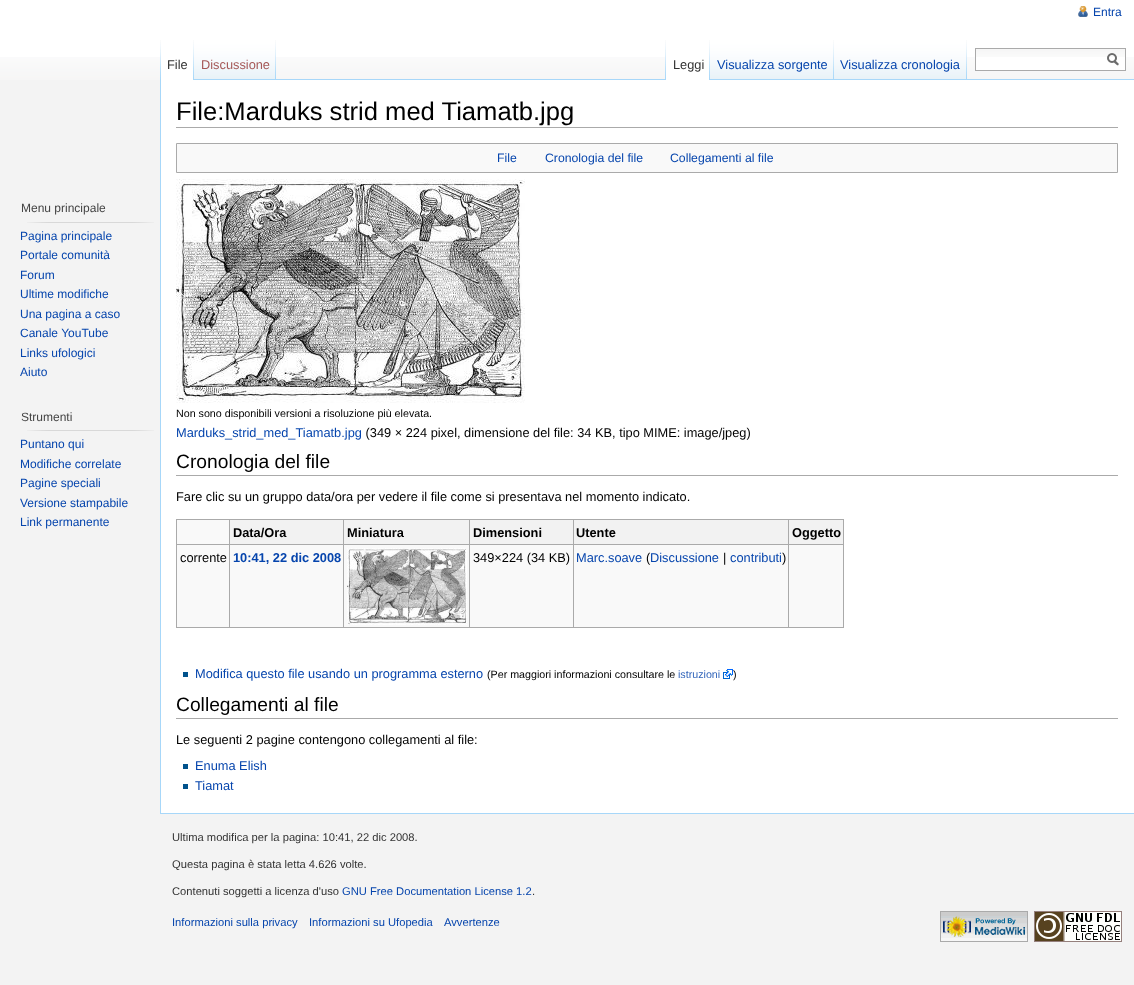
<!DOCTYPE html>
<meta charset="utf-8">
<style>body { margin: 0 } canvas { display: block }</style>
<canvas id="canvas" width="1134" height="985"></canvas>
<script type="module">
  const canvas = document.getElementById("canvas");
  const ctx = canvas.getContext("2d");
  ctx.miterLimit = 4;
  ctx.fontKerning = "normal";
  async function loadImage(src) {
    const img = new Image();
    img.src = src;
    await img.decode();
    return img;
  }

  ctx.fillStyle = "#f3f3f3";
  ctx.fillRect(0, 0, 1134, 985);
  ctx.fillStyle = "#ffffff";
  ctx.fillRect(0, 0, 1134, 57);
  ctx.drawImage(await loadImage("img1.png"), 0, 57, 1134, 23);
  ctx.drawImage(await loadImage("img2.png"), 1078, 6, 10, 11);
  ctx.font = "12px Liberation Sans";
  ctx.fillStyle = "#0645ad";
  ctx.fillText("Entra", 1093, 16);
  ctx.drawImage(await loadImage("img3.png"), 160, 40, 1, 39);
  ctx.fillStyle = "#a7d7f9";
  ctx.fillRect(160, 79, 974, 1);
  ctx.fillStyle = "#ffffff";
  ctx.fillRect(161, 57, 32, 23);
  ctx.drawImage(await loadImage("img4.png"), 193, 40, 1, 40);
  ctx.font = "12.8px Liberation Sans";
  ctx.fillStyle = "#333333";
  ctx.fillText("File", 167, 69);
  ctx.drawImage(await loadImage("img5.png"), 194, 40, 82, 40);
  ctx.drawImage(await loadImage("img3.png"), 275, 40, 1, 39);
  ctx.fillStyle = "#a55858";
  ctx.fillText("Discussione", 201, 69);
  ctx.drawImage(await loadImage("img3.png"), 665, 40, 1, 39);
  ctx.fillStyle = "#ffffff";
  ctx.fillRect(666, 57, 43, 23);
  ctx.drawImage(await loadImage("img4.png"), 709, 40, 1, 40);
  ctx.fillStyle = "#333333";
  ctx.fillText("Leggi", 673, 69);
  ctx.drawImage(await loadImage("img6.png"), 710, 40, 124, 40);
  ctx.drawImage(await loadImage("img3.png"), 833, 40, 1, 39);
  ctx.fillStyle = "#0645ad";
  ctx.fillText("Visualizza sorgente", 717, 69);
  ctx.drawImage(await loadImage("img7.png"), 834, 40, 133, 40);
  ctx.drawImage(await loadImage("img3.png"), 966, 40, 1, 39);
  ctx.fillText("Visualizza cronologia", 840, 69);
  ctx.fillStyle = "#ffffff";
  ctx.fillRect(976, 57, 149, 13);
  ctx.drawImage(await loadImage("img8.png"), 976, 49, 149, 8);
  ctx.strokeStyle = "#aaaaaa";
  ctx.strokeRect(975.5, 48.5, 150, 22);
  ctx.drawImage(await loadImage("img9.png"), 1107, 53, 12, 13);
  ctx.font = "12px Liberation Sans";
  ctx.fillStyle = "#444444";
  ctx.fillText("Menu principale", 21, 212);
  ctx.drawImage(await loadImage("img10.png"), 27, 222, 127, 1);
  ctx.fillStyle = "#0645ad";
  ctx.fillText("Pagina principale", 20, 240);
  ctx.fillText("Portale comunità", 20, 259);
  ctx.fillText("Forum", 20, 279);
  ctx.fillText("Ultime modifiche", 20, 298);
  ctx.fillText("Una pagina a caso", 20, 318);
  ctx.fillText("Canale YouTube", 20, 337);
  ctx.fillText("Links ufologici", 20, 357);
  ctx.fillText("Aiuto", 20, 376);
  ctx.fillStyle = "#444444";
  ctx.fillText("Strumenti", 21, 421);
  ctx.drawImage(await loadImage("img10.png"), 27, 430, 127, 1);
  ctx.fillStyle = "#0645ad";
  ctx.fillText("Puntano qui", 20, 448);
  ctx.fillText("Modifiche correlate", 20, 468);
  ctx.fillText("Pagine speciali", 20, 487);
  ctx.fillText("Versione stampabile", 20, 507);
  ctx.fillText("Link permanente", 20, 526);
  ctx.fillStyle = "#ffffff";
  ctx.fillRect(161, 80, 973, 733);
  ctx.fillStyle = "#a7d7f9";
  ctx.fillRect(160, 80, 1, 733);
  ctx.fillStyle = "#aaaaaa";
  ctx.fillRect(176, 127, 942, 1);
  ctx.font = "25.6px Liberation Sans";
  ctx.fillStyle = "#000000";
  ctx.fillText("File:Marduks strid med Tiamatb.jpg", 176, 120);
  ctx.fillStyle = "#f9f9f9";
  ctx.beginPath();
  ctx.rect(176.5, 143.5, 941, 29);
  ctx.fill();
  ctx.stroke();
  ctx.font = "12.25px Liberation Sans";
  ctx.fillStyle = "#0645ad";
  ctx.fillText("File", 497, 162);
  ctx.fillText("Cronologia del file", 545, 162);
  ctx.fillText("Collegamenti al file", 670, 162);
  ctx.drawImage(await loadImage("img11.png"), 176, 179, 349, 224);
  ctx.font = "10.7px Liberation Sans";
  ctx.fillStyle = "#000000";
  ctx.fillText("Non sono disponibili versioni a risoluzione più elevata.", 176, 417);
  ctx.font = "12.8px Liberation Sans";
  ctx.fillStyle = "#0645ad";
  ctx.fillText("Marduks_strid_med_Tiamatb.jpg", 176, 437);
  ctx.fillStyle = "#000000";
  ctx.fillText(" (349 × 224 pixel, dimensione del file: 34 KB, tipo MIME: image/jpeg)", 362, 437);
  ctx.fillStyle = "#aaaaaa";
  ctx.fillRect(176, 475, 942, 1);
  ctx.font = "19.25px Liberation Sans";
  ctx.fillStyle = "#000000";
  ctx.fillText("Cronologia del file", 176, 468);
  ctx.font = "12.8px Liberation Sans";
  ctx.fillText("Fare clic su un gruppo data/ora per vedere il file come si presentava nel momento indicato.", 176, 501);
  ctx.fillStyle = "#f9f9f9";
  ctx.fillRect(177, 520, 666, 107);
  ctx.fillStyle = "#aaaaaa";
  ctx.fillRect(176, 519, 668, 1);
  ctx.fillRect(843, 519, 1, 109);
  ctx.fillRect(176, 627, 668, 1);
  ctx.fillRect(176, 519, 1, 109);
  ctx.fillStyle = "#f2f2f2";
  ctx.fillRect(230, 520, 113, 24);
  ctx.fillStyle = "#aaaaaa";
  ctx.fillRect(788, 544, 56, 1);
  ctx.fillRect(788, 544, 1, 84);
  ctx.fillRect(573, 544, 216, 1);
  ctx.fillRect(573, 544, 1, 84);
  ctx.fillRect(469, 544, 105, 1);
  ctx.fillRect(469, 544, 1, 84);
  ctx.fillRect(343, 544, 127, 1);
  ctx.fillRect(343, 544, 1, 84);
  ctx.fillRect(229, 544, 115, 1);
  ctx.fillRect(229, 544, 1, 84);
  ctx.fillRect(176, 544, 54, 1);
  ctx.fillRect(229, 519, 1, 26);
  ctx.font = "bold 12.8px Liberation Sans";
  ctx.fillStyle = "#000000";
  ctx.fillText("Data/Ora", 233, 537);
  ctx.fillStyle = "#f2f2f2";
  ctx.fillRect(344, 520, 125, 24);
  ctx.fillStyle = "#aaaaaa";
  ctx.fillRect(343, 519, 1, 26);
  ctx.fillStyle = "#000000";
  ctx.fillText("Miniatura", 347, 537);
  ctx.fillStyle = "#f2f2f2";
  ctx.fillRect(470, 520, 103, 24);
  ctx.fillStyle = "#aaaaaa";
  ctx.fillRect(469, 519, 1, 26);
  ctx.fillStyle = "#000000";
  ctx.fillText("Dimensioni", 473, 537);
  ctx.fillStyle = "#f2f2f2";
  ctx.fillRect(574, 520, 214, 24);
  ctx.fillStyle = "#aaaaaa";
  ctx.fillRect(573, 519, 1, 26);
  ctx.fillStyle = "#000000";
  ctx.fillText("Utente", 576, 537);
  ctx.fillStyle = "#f2f2f2";
  ctx.fillRect(789, 520, 54, 24);
  ctx.fillStyle = "#aaaaaa";
  ctx.fillRect(788, 519, 1, 26);
  ctx.fillStyle = "#000000";
  ctx.fillText("Oggetto", 792, 537);
  ctx.font = "12.8px Liberation Sans";
  ctx.fillText("corrente", 180, 562);
  ctx.font = "bold 12.8px Liberation Sans";
  ctx.fillStyle = "#0645ad";
  ctx.fillText("10:41, 22 dic 2008", 233, 562);
  ctx.drawImage(await loadImage("img12.png"), 347, 548, 120, 77);
  ctx.font = "12.8px Liberation Sans";
  ctx.fillStyle = "#000000";
  ctx.fillText("349×224 (34 KB)", 473, 562);
  ctx.fillStyle = "#0645ad";
  ctx.fillText("Marc.soave", 576, 562);
  ctx.fillStyle = "#000000";
  ctx.fillText("(", 646, 562);
  ctx.fillStyle = "#0645ad";
  ctx.fillText("Discussione", 650, 562);
  ctx.fillStyle = "#000000";
  ctx.fillText("|", 723, 562);
  ctx.fillStyle = "#0645ad";
  ctx.fillText("contributi", 730, 562);
  ctx.fillStyle = "#000000";
  ctx.fillText(")", 782, 562);
  ctx.fillStyle = "#00528c";
  ctx.fillRect(183, 672, 5, 5);
  ctx.fillStyle = "#0645ad";
  ctx.fillText("Modifica questo file usando un programma esterno", 195, 678);
  ctx.font = "10.7px Liberation Sans";
  ctx.fillStyle = "#000000";
  ctx.fillText("(Per maggiori informazioni consultare le", 487, 678);
  ctx.fillStyle = "#3366bb";
  ctx.fillText("istruzioni", 678, 678);
  ctx.drawImage(await loadImage("img13.png"), 723, 669, 10, 10);
  ctx.fillStyle = "#000000";
  ctx.fillText(")", 733, 678);
  ctx.fillStyle = "#aaaaaa";
  ctx.fillRect(176, 718, 942, 1);
  ctx.font = "19.25px Liberation Sans";
  ctx.fillStyle = "#000000";
  ctx.fillText("Collegamenti al file", 176, 711);
  ctx.font = "12.8px Liberation Sans";
  ctx.fillText("Le seguenti 2 pagine contengono collegamenti al file:", 176, 744);
  ctx.fillStyle = "#00528c";
  ctx.fillRect(183, 764, 5, 5);
  ctx.fillStyle = "#0645ad";
  ctx.fillText("Enuma Elish", 195, 770);
  ctx.fillStyle = "#00528c";
  ctx.fillRect(183, 784, 5, 5);
  ctx.fillStyle = "#0645ad";
  ctx.fillText("Tiamat", 195, 790);
  ctx.fillStyle = "#a7d7f9";
  ctx.fillRect(160, 813, 974, 1);
  ctx.font = "11.2px Liberation Sans";
  ctx.fillStyle = "#333333";
  ctx.fillText("Ultima modifica per la pagina: 10:41, 22 dic 2008.", 172, 841);
  ctx.fillText("Questa pagina è stata letta 4.626 volte.", 172, 868);
  ctx.fillText("Contenuti soggetti a licenza d'uso", 172, 895);
  ctx.fillStyle = "#0645ad";
  ctx.fillText("GNU Free Documentation License 1.2", 342, 895);
  ctx.fillStyle = "#333333";
  ctx.fillText(".", 532, 895);
  ctx.fillStyle = "#0645ad";
  ctx.fillText("Informazioni sulla privacy", 172, 926);
  ctx.fillText("Informazioni su Ufopedia", 309, 926);
  ctx.fillText("Avvertenze", 444, 926);
  ctx.drawImage(await loadImage("img14.png"), 940, 911, 88, 31);
  ctx.drawImage(await loadImage("img15.png"), 1034, 911, 88, 31);
</script>
